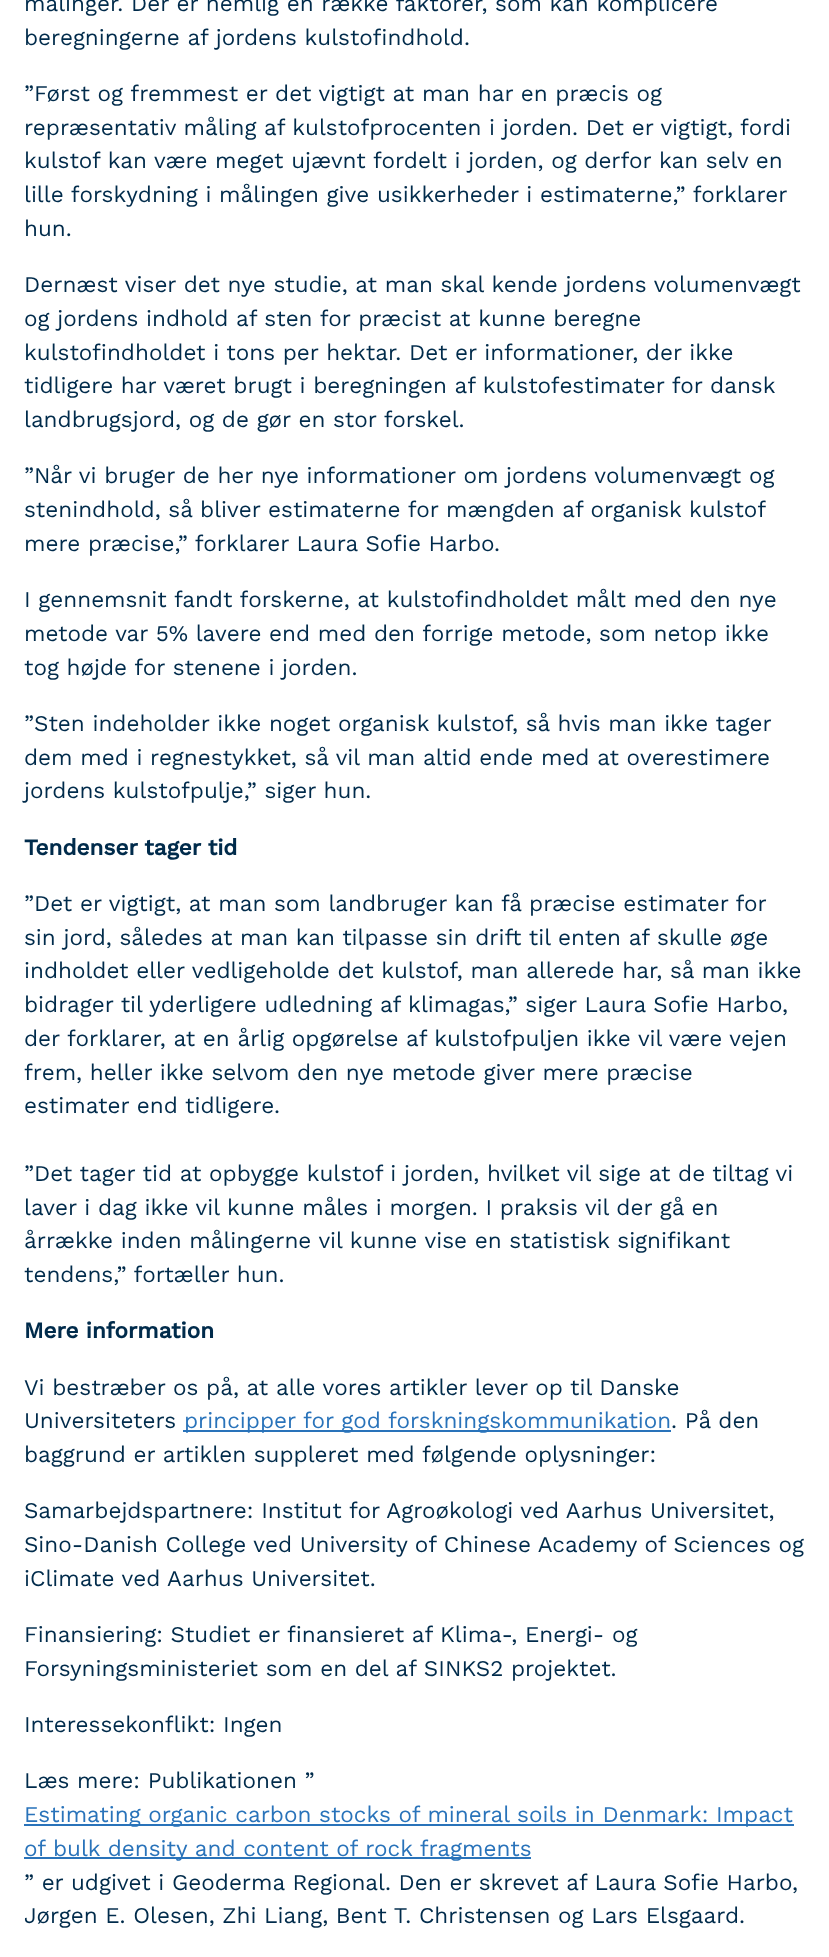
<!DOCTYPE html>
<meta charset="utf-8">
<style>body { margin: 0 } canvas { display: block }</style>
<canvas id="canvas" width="829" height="1957"></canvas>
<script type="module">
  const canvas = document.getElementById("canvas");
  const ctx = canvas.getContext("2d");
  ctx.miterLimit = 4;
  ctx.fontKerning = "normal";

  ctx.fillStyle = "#ffffff";
  ctx.fillRect(0, 0, 829, 1957);
  ctx.font = "22.5px Work Sans";
  ctx.fillStyle = "#002b4b";
  ctx.fillText("målinger. Der er nemlig en række faktorer, som kan komplicere", 24, 11);
  ctx.fillText("beregningerne af jordens kulstofindhold.", 24, 45);
  ctx.fillText("”Først og fremmest er det vigtigt at man har en præcis og", 24, 101);
  ctx.fillText("repræsentativ måling af kulstofprocenten i jorden. Det er vigtigt, fordi", 24, 135);
  ctx.fillText("kulstof kan være meget ujævnt fordelt i jorden, og derfor kan selv en", 24, 168);
  ctx.fillText("lille forskydning i målingen give usikkerheder i estimaterne,” forklarer", 24, 202);
  ctx.fillText("hun.", 24, 236);
  ctx.fillText("Dernæst viser det nye studie, at man skal kende jordens volumenvægt", 24, 292);
  ctx.fillText("og jordens indhold af sten for præcist at kunne beregne", 24, 326);
  ctx.fillText("kulstofindholdet i tons per hektar. Det er informationer, der ikke", 24, 360);
  ctx.fillText("tidligere har været brugt i beregningen af kulstofestimater for dansk", 24, 393);
  ctx.fillText("landbrugsjord, og de gør en stor forskel.", 24, 427);
  ctx.fillText("”Når vi bruger de her nye informationer om jordens volumenvægt og", 24, 483);
  ctx.fillText("stenindhold, så bliver estimaterne for mængden af organisk kulstof", 24, 517);
  ctx.fillText("mere præcise,” forklarer Laura Sofie Harbo.", 24, 551);
  ctx.fillText("I gennemsnit fandt forskerne, at kulstofindholdet målt med den nye", 24, 607);
  ctx.fillText("metode var 5% lavere end med den forrige metode, som netop ikke", 24, 641);
  ctx.fillText("tog højde for stenene i jorden.", 24, 675);
  ctx.fillText("”Sten indeholder ikke noget organisk kulstof, så hvis man ikke tager", 24, 731);
  ctx.fillText("dem med i regnestykket, så vil man altid ende med at overestimere", 24, 765);
  ctx.fillText("jordens kulstofpulje,” siger hun.", 24, 798);
  ctx.font = "bold 22.5px Work Sans";
  ctx.fillText("Tendenser tager tid", 24, 855);
  ctx.font = "22.5px Work Sans";
  ctx.fillText("”Det er vigtigt, at man som landbruger kan få præcise estimater for", 24, 911);
  ctx.fillText("sin jord, således at man kan tilpasse sin drift til enten af skulle øge", 24, 945);
  ctx.fillText("indholdet eller vedligeholde det kulstof, man allerede har, så man ikke", 24, 978);
  ctx.fillText("bidrager til yderligere udledning af klimagas,” siger Laura Sofie Harbo,", 24, 1012);
  ctx.fillText("der forklarer, at en årlig opgørelse af kulstofpuljen ikke vil være vejen", 24, 1046);
  ctx.fillText("frem, heller ikke selvom den nye metode giver mere præcise", 24, 1080);
  ctx.fillText("estimater end tidligere.", 24, 1113);
  ctx.fillText("”Det tager tid at opbygge kulstof i jorden, hvilket vil sige at de tiltag vi", 24, 1181);
  ctx.fillText("laver i dag ikke vil kunne måles i morgen. I praksis vil der gå en", 24, 1215);
  ctx.fillText("årrække inden målingerne vil kunne vise en statistisk signifikant", 24, 1248);
  ctx.fillText("tendens,” fortæller hun.", 24, 1282);
  ctx.font = "bold 22.5px Work Sans";
  ctx.fillText("Mere information", 24, 1338);
  ctx.font = "22.5px Work Sans";
  ctx.fillText("Vi bestræber os på, at alle vores artikler lever op til Danske", 24, 1395);
  ctx.fillText("Universiteters", 24, 1428);
  ctx.fillStyle = "#2973ba";
  ctx.fillRect(183, 1430, 488, 2);
  ctx.fillText("principper for god forskningskommunikation", 184, 1428);
  ctx.fillStyle = "#002b4b";
  ctx.fillText(". På den", 671, 1428);
  ctx.fillText("baggrund er artiklen suppleret med følgende oplysninger:", 24, 1462);
  ctx.fillText("Samarbejdspartnere: Institut for Agroøkologi ved Aarhus Universitet,", 24, 1518);
  ctx.fillText("Sino-Danish College ved University of Chinese Academy of Sciences og", 24, 1552);
  ctx.fillText("iClimate ved Aarhus Universitet.", 24, 1586);
  ctx.fillText("Finansiering: Studiet er finansieret af Klima-, Energi- og", 24, 1642);
  ctx.fillText("Forsyningsministeriet som en del af SINKS2 projektet.", 24, 1676);
  ctx.fillText("Interessekonflikt: Ingen", 24, 1732);
  ctx.fillText("Læs mere: Publikationen ”", 24, 1788);
  ctx.fillStyle = "#2973ba";
  ctx.fillRect(24, 1824, 770, 2);
  ctx.fillText("Estimating organic carbon stocks of mineral soils in Denmark: Impact", 24, 1822);
  ctx.fillRect(24, 1857, 507, 2);
  ctx.fillText("of bulk density and content of rock fragments", 24, 1856);
  ctx.fillStyle = "#002b4b";
  ctx.fillText("” er udgivet i Geoderma Regional. Den er skrevet af Laura Sofie Harbo,", 24, 1890);
  ctx.fillText("Jørgen E. Olesen, Zhi Liang, Bent T. Christensen og Lars Elsgaard.", 24, 1923);
</script>
